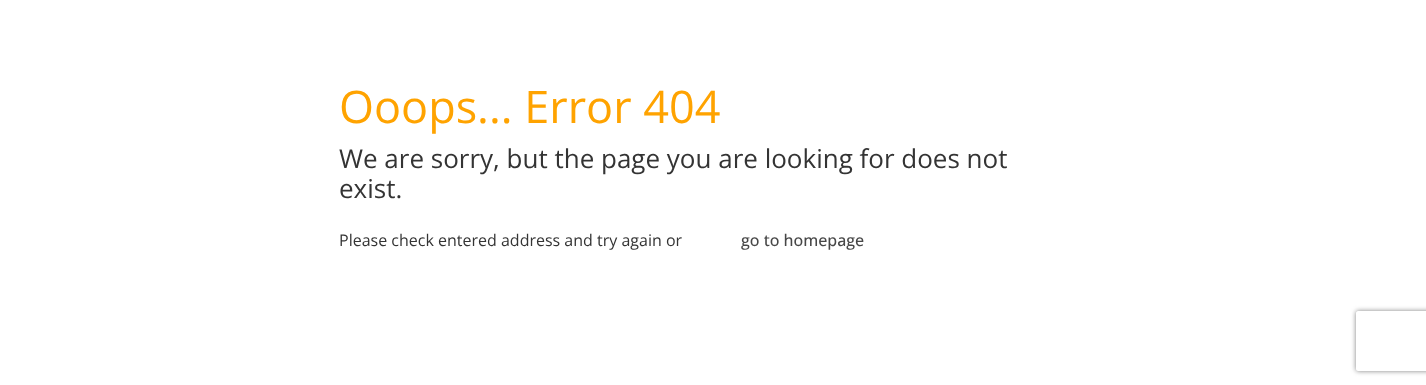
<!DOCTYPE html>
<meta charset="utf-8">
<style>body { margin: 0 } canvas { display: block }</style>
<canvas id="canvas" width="1426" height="385"></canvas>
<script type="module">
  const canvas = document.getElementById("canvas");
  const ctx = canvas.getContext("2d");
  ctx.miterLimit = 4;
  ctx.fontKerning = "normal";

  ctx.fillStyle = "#ffffff";
  ctx.fillRect(0, 0, 1426, 385);
  ctx.font = "45px Open Sans";
  ctx.fillStyle = "#ffa300";
  ctx.fillText("Ooops... Error 404", 339, 123);
  ctx.font = "26px Open Sans";
  ctx.fillStyle = "#343434";
  ctx.fillText("We are sorry, but the page you are looking for does not", 339, 168);
  ctx.fillText("exist.", 339, 198);
  ctx.font = "16px Open Sans";
  ctx.fillText("Please check entered address and try again or", 339, 246);
  ctx.font = "500 16px Open Sans";
  ctx.fillStyle = "#474747";
  ctx.fillText("go to homepage", 741, 246);
  ctx.save();
  ctx.beginPath();
  ctx.moveTo(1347, 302);
  ctx.lineTo(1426, 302);
  ctx.lineTo(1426, 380);
  ctx.lineTo(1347, 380);
  ctx.closePath();
  ctx.moveTo(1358, 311);
  ctx.lineTo(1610, 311);
  ctx.bezierCurveTo(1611, 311, 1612, 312, 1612, 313);
  ctx.lineTo(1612, 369);
  ctx.bezierCurveTo(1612, 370, 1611, 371, 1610, 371);
  ctx.lineTo(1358, 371);
  ctx.bezierCurveTo(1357, 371, 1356, 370, 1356, 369);
  ctx.lineTo(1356, 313);
  ctx.bezierCurveTo(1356, 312, 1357, 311, 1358, 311);
  ctx.closePath();
  ctx.clip("evenodd");
  ctx.fillStyle = "#808080";
  ctx.filter = "blur(2.5px)";
  ctx.beginPath();
  ctx.roundRect(1356, 311, 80, 60, 2);
  ctx.fill();
  ctx.filter = "none";
  ctx.restore();
</script>
